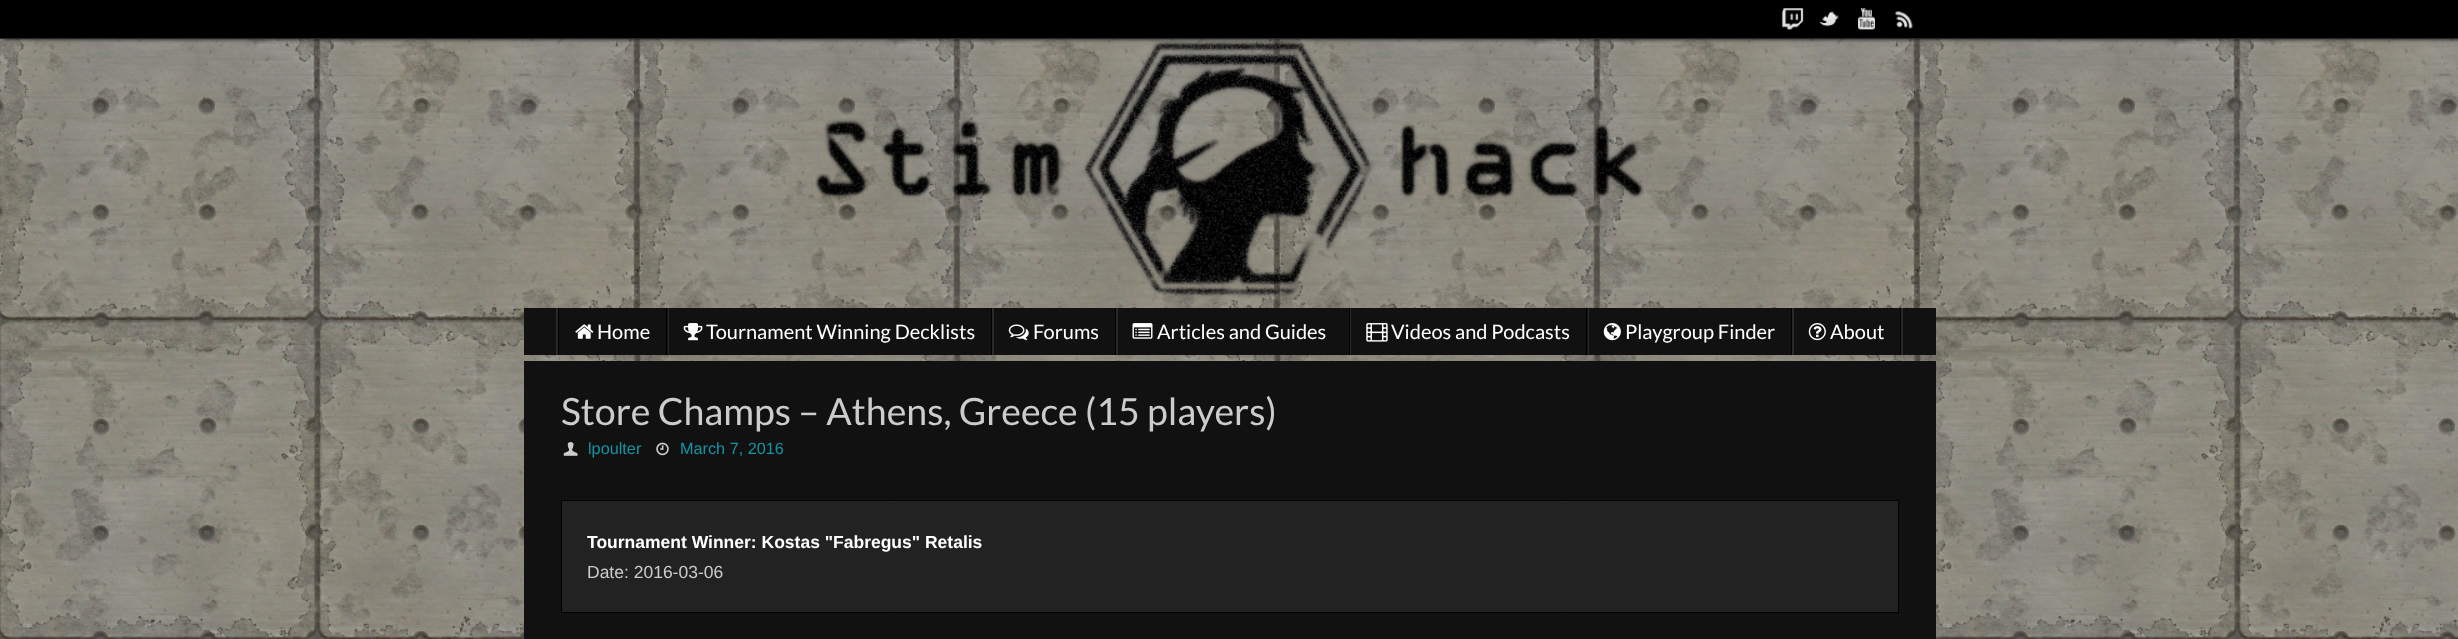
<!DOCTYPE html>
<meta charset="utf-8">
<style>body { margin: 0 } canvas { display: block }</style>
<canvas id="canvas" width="2458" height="639"></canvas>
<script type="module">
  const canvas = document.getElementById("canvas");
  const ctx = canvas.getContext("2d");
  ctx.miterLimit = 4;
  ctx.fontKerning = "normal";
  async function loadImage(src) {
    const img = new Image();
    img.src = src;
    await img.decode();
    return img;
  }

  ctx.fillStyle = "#ffffff";
  ctx.fillRect(0, 0, 2458, 639);
  ctx.drawImage(await loadImage("img1.png"), 0, 39, 2458, 600);
  ctx.fillStyle = "#000000";
  ctx.filter = "blur(2px)";
  ctx.beginPath();
  ctx.rect(4, 0, 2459, 39);
  ctx.fill();
  ctx.filter = "none";
  ctx.fillRect(0, 0, 2458, 38);
  ctx.fillStyle = "#282828";
  ctx.fillRect(0, 38, 2458, 1);
  ctx.drawImage(await loadImage("img2.png"), 1781, 8, 23, 22);
  ctx.drawImage(await loadImage("img3.png"), 1819, 11, 20, 16);
  ctx.drawImage(await loadImage("img4.png"), 1858, 8, 17, 22);
  ctx.drawImage(await loadImage("img5.png"), 1895, 11, 18, 18);
  ctx.drawImage(await loadImage("img6.png"), 815, 41, 829, 257);
  ctx.fillStyle = "#111111";
  ctx.fillRect(524, 308, 1412, 47);
  ctx.fillStyle = "#292929";
  ctx.fillRect(556, 308, 2, 47);
  ctx.fillStyle = "#000000";
  ctx.fillRect(558, 308, 1, 47);
  ctx.fillStyle = "#292929";
  ctx.fillRect(668, 308, 1, 47);
  ctx.fillStyle = "#000000";
  ctx.fillRect(666, 308, 1, 47);
  ctx.drawImage(await loadImage("img7.png"), 575, 324, 19, 15);
  ctx.font = "20px Lato";
  ctx.fillStyle = "#ffffff";
  ctx.fillText("Home", 597, 339);
  ctx.fillStyle = "#292929";
  ctx.fillRect(992, 308, 2, 47);
  ctx.fillStyle = "#000000";
  ctx.fillRect(991, 308, 1, 47);
  ctx.drawImage(await loadImage("img8.png"), 683, 323, 20, 18);
  ctx.fillStyle = "#ffffff";
  ctx.fillText("Tournament Winning Decklists", 706, 339);
  ctx.fillStyle = "#292929";
  ctx.fillRect(1116, 308, 2, 47);
  ctx.fillStyle = "#000000";
  ctx.fillRect(1115, 308, 1, 47);
  ctx.drawImage(await loadImage("img9.png"), 1008, 324, 21, 17);
  ctx.fillStyle = "#ffffff";
  ctx.fillText("Forums", 1033, 339);
  ctx.fillStyle = "#292929";
  ctx.fillRect(1350, 308, 1, 47);
  ctx.fillStyle = "#000000";
  ctx.fillRect(1349, 308, 1, 47);
  ctx.drawImage(await loadImage("img10.png"), 1132, 323, 21, 16);
  ctx.fillStyle = "#ffffff";
  ctx.fillText("Articles and Guides", 1157, 339);
  ctx.fillStyle = "#292929";
  ctx.fillRect(1588, 308, 1, 47);
  ctx.fillStyle = "#000000";
  ctx.fillRect(1586, 308, 1, 47);
  ctx.drawImage(await loadImage("img11.png"), 1366, 323, 22, 19);
  ctx.fillStyle = "#ffffff";
  ctx.fillText("Videos and Podcasts", 1391, 339);
  ctx.fillStyle = "#292929";
  ctx.fillRect(1792, 308, 2, 47);
  ctx.fillStyle = "#000000";
  ctx.fillRect(1791, 308, 1, 47);
  ctx.drawImage(await loadImage("img12.png"), 1603, 323, 18, 18);
  ctx.fillStyle = "#ffffff";
  ctx.fillText("Playgroup Finder", 1625, 339);
  ctx.fillStyle = "#292929";
  ctx.fillRect(1901, 308, 2, 47);
  ctx.fillStyle = "#000000";
  ctx.fillRect(1900, 308, 1, 47);
  ctx.drawImage(await loadImage("img13.png"), 1808, 323, 18, 18);
  ctx.fillStyle = "#ffffff";
  ctx.fillText("About", 1830, 339);
  ctx.fillStyle = "#111111";
  ctx.fillRect(524, 361, 1412, 278);
  ctx.font = "37.5px Lato";
  ctx.fillStyle = "#cccccc";
  ctx.fillText("Store Champs – Athens, Greece (15 players)", 561, 425);
  ctx.drawImage(await loadImage("img14.png"), 563, 442, 15, 14);
  ctx.font = "16.25px Liberation Sans";
  ctx.fillStyle = "#1693a5";
  ctx.fillText("lpoulter", 588, 454);
  ctx.drawImage(await loadImage("img15.png"), 656, 442, 13, 14);
  ctx.fillText("March 7, 2016", 680, 454);
  ctx.fillStyle = "#222222";
  ctx.beginPath();
  ctx.rect(561.5, 500.5, 1337, 112);
  ctx.fill();
  ctx.strokeStyle = "#000000";
  ctx.stroke();
  ctx.font = "bold 17.5px Liberation Sans";
  ctx.fillStyle = "#ffffff";
  ctx.fillText("Tournament Winner: Kostas \"Fabregus\" Retalis", 587, 548);
  ctx.font = "17.5px Liberation Sans";
  ctx.fillStyle = "#cccccc";
  ctx.fillText("Date: 2016-03-06", 587, 578);
</script>
